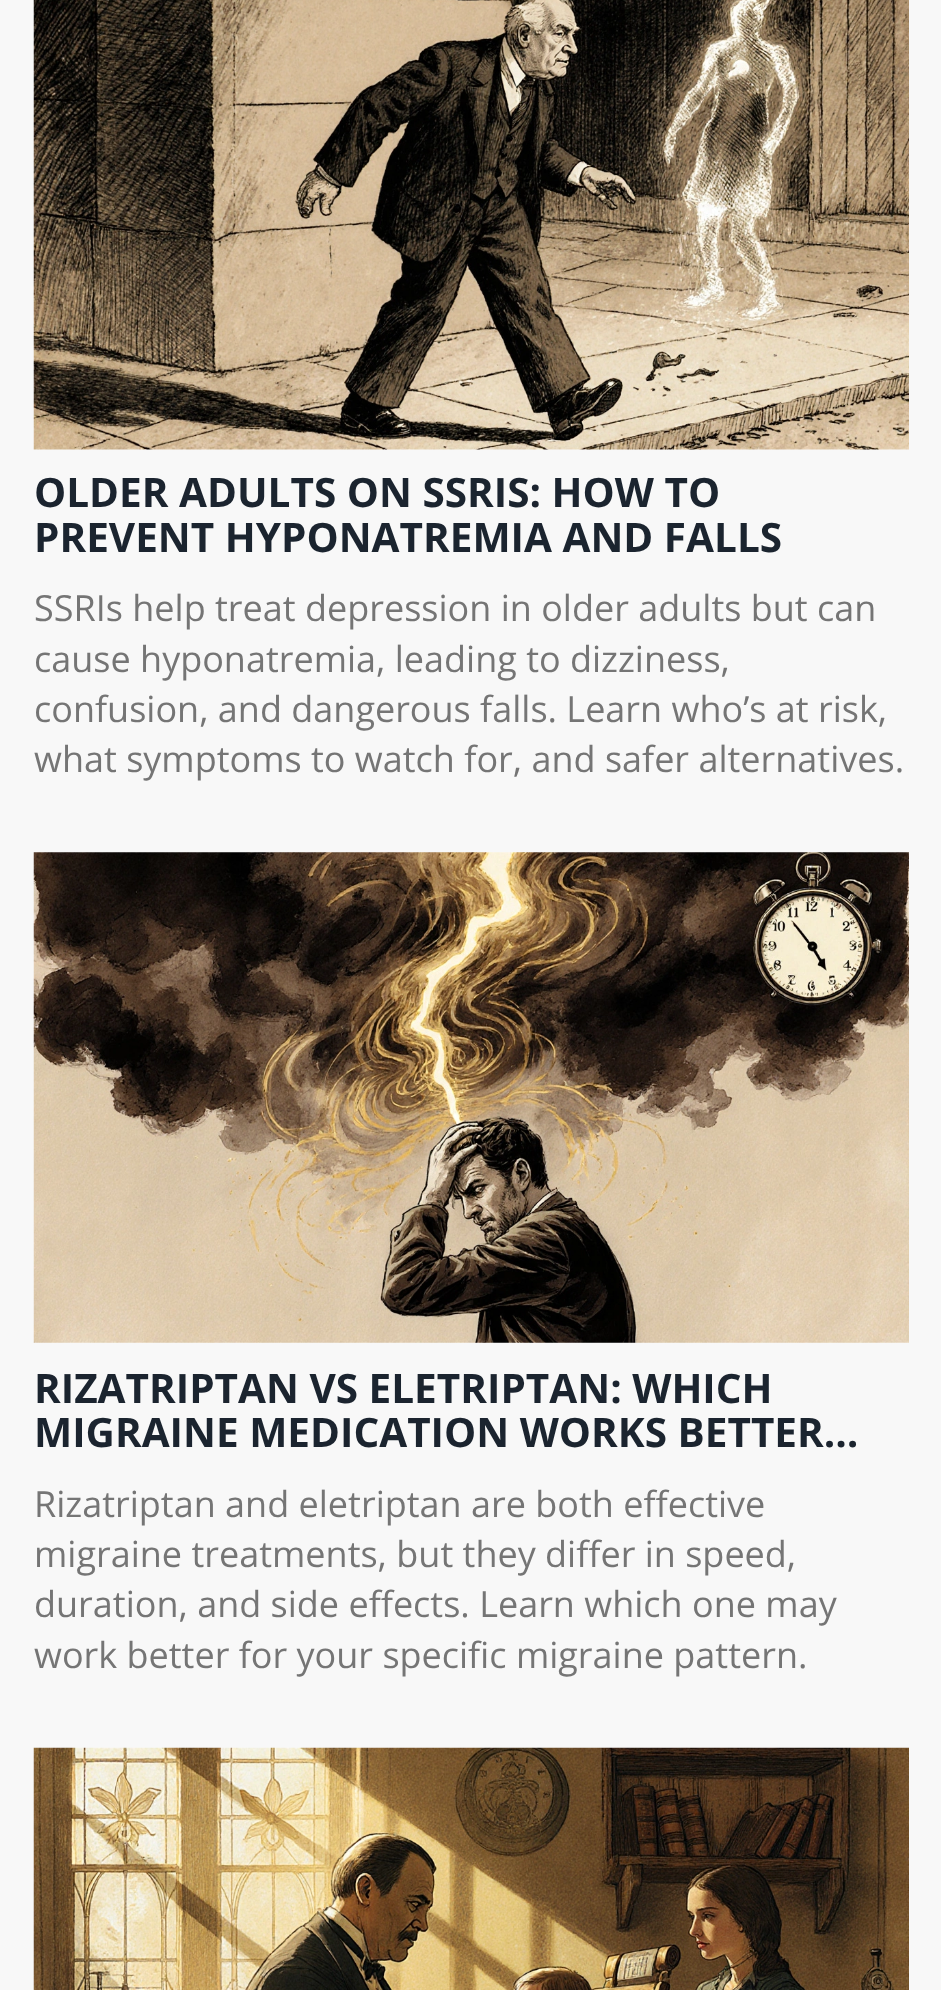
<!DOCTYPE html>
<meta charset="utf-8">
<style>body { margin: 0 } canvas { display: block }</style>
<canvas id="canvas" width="941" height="1990"></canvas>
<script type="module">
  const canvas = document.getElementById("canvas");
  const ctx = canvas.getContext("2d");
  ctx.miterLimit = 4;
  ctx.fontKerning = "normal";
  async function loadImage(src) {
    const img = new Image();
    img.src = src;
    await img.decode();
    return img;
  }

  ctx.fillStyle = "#f8f8f8";
  ctx.fillRect(0, 0, 941, 1990);
  ctx.drawImage(await loadImage("img1.png"), 33, 0, 876, 450);
  ctx.font = "bold 40.5px Open Sans";
  ctx.fillStyle = "#1b242f";
  ctx.fillText("OLDER ADULTS ON SSRIS: HOW TO", 34, 507);
  ctx.fillText("PREVENT HYPONATREMIA AND FALLS", 34, 552);
  ctx.font = "36px Open Sans";
  ctx.fillStyle = "#757575";
  ctx.fillText("SSRIs help treat depression in older adults but can", 34, 621);
  ctx.fillText("cause hyponatremia, leading to dizziness,", 34, 672);
  ctx.fillText("confusion, and dangerous falls. Learn who’s at risk,", 34, 722);
  ctx.fillText("what symptoms to watch for, and safer alternatives.", 34, 772);
  ctx.drawImage(await loadImage("img2.png"), 33, 852, 876, 491);
  ctx.font = "bold 40.5px Open Sans";
  ctx.fillStyle = "#1b242f";
  ctx.fillText("RIZATRIPTAN VS ELETRIPTAN: WHICH", 34, 1403);
  ctx.fillText("MIGRAINE MEDICATION WORKS BETTER…", 34, 1447);
  ctx.font = "36px Open Sans";
  ctx.fillStyle = "#757575";
  ctx.fillText("Rizatriptan and eletriptan are both effective", 34, 1517);
  ctx.fillText("migraine treatments, but they differ in speed,", 34, 1567);
  ctx.fillText("duration, and side effects. Learn which one may", 34, 1617);
  ctx.fillText("work better for your specific migraine pattern.", 34, 1668);
  ctx.drawImage(await loadImage("img3.png"), 33, 1747, 876, 243);
</script>
